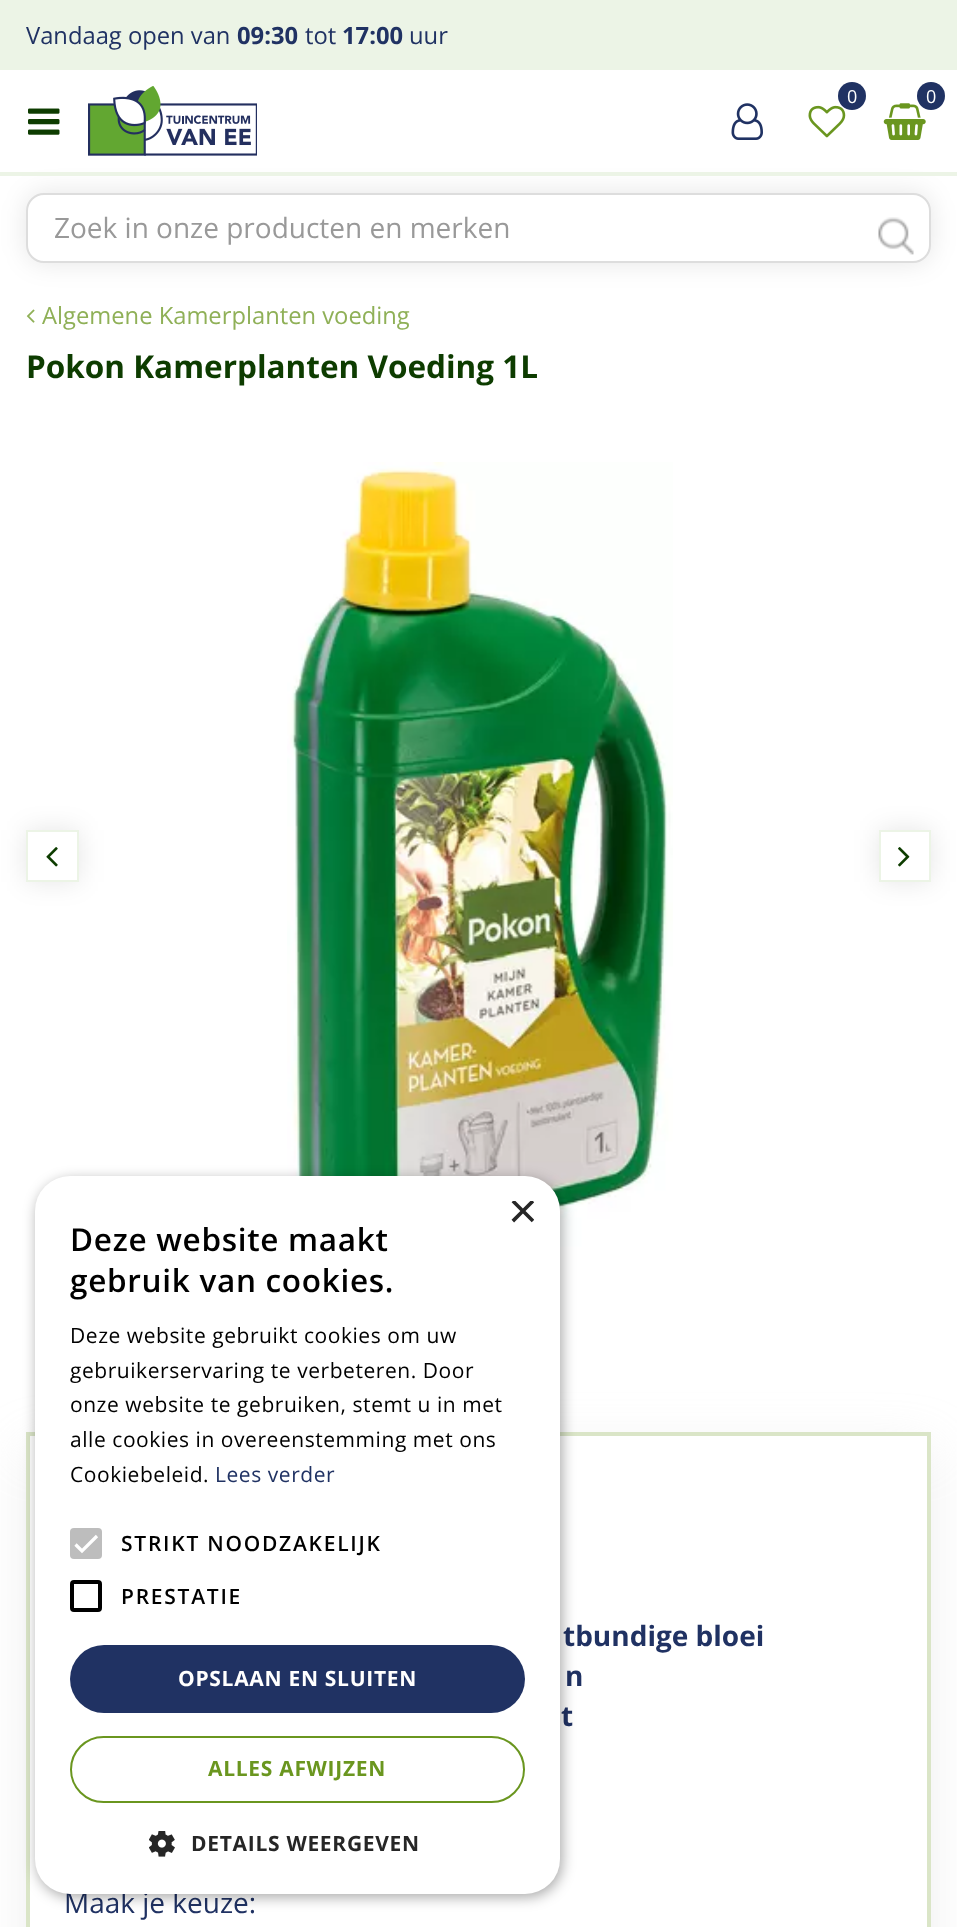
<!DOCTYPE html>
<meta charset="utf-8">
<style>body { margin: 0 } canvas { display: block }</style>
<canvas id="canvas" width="957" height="1927"></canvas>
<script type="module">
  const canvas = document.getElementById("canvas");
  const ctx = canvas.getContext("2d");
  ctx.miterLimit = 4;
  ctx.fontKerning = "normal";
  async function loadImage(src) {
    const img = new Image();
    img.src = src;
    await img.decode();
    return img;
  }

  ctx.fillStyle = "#ffffff";
  ctx.fillRect(0, 0, 957, 1927);
  ctx.fillStyle = "#ecf4e6";
  ctx.fillRect(0, 0, 957, 70);
  ctx.font = "23.75px Open Sans";
  ctx.fillStyle = "#203263";
  ctx.fillText("Vandaag open van", 26, 44);
  ctx.font = "bold 23.75px Open Sans";
  ctx.fillText("09:30", 237, 44);
  ctx.font = "23.75px Open Sans";
  ctx.fillText("tot", 305, 44);
  ctx.font = "bold 23.75px Open Sans";
  ctx.fillText("17:00", 342, 44);
  ctx.font = "23.75px Open Sans";
  ctx.fillText("uur", 409, 44);
  ctx.fillStyle = "rgba(0, 0, 0, 0.1)";
  ctx.filter = "blur(13px)";
  ctx.beginPath();
  ctx.roundRect(26, 193, 905, 70, 18);
  ctx.fill();
  ctx.filter = "none";
  ctx.fillStyle = "#ecf4e6";
  ctx.fillRect(0, 172, 957, 4);
  ctx.drawImage(await loadImage("img1.png"), 88, 86, 169, 70);
  ctx.drawImage(await loadImage("img2.png"), 808, 105, 38, 33);
  ctx.fillStyle = "#203263";
  ctx.beginPath();
  ctx.arc(852, 96, 14, 0, Math.PI * 2);
  ctx.fill();
  ctx.font = "18px Open Sans";
  ctx.fillStyle = "#ffffff";
  ctx.fillText("0", 847, 103);
  ctx.drawImage(await loadImage("img3.png"), 883, 103, 43, 37);
  ctx.fillStyle = "#203263";
  ctx.beginPath();
  ctx.arc(931, 96, 14, 0, Math.PI * 2);
  ctx.fill();
  ctx.fillStyle = "#ffffff";
  ctx.fillText("0", 926, 103);
  ctx.drawImage(await loadImage("img4.png"), 28, 108, 32, 27);
  ctx.drawImage(await loadImage("img5.png"), 731, 103, 32, 37);
  ctx.beginPath();
  ctx.roundRect(27, 194, 903, 68, 17);
  ctx.fill();
  ctx.strokeStyle = "#dddddd";
  ctx.lineWidth = 2;
  ctx.stroke();
  ctx.font = "28px Open Sans";
  ctx.fillStyle = "#999999";
  ctx.fillText("Zoek in onze producten en merken", 54, 238);
  ctx.drawImage(await loadImage("img6.png"), 878, 217, 36, 38);
  ctx.font = "bold 31.5px Open Sans";
  ctx.fillStyle = "#0d3c00";
  ctx.fillText("Pokon Kamerplanten Voeding 1L", 26, 378);
  ctx.fillStyle = "rgba(0, 0, 0, 0.1)";
  ctx.filter = "blur(13px)";
  ctx.beginPath();
  ctx.rect(26, 830, 53, 52);
  ctx.fill();
  ctx.filter = "none";
  ctx.fillStyle = "#ffffff";
  ctx.beginPath();
  ctx.rect(27, 831, 51, 50);
  ctx.fill();
  ctx.strokeStyle = "#ecf4e6";
  ctx.stroke();
  ctx.drawImage(await loadImage("img7.png"), 46, 847, 12, 20);
  ctx.drawImage(await loadImage("img8.png"), 287, 462, 386, 785);
  ctx.save();
  ctx.beginPath();
  ctx.moveTo(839, 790);
  ctx.lineTo(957, 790);
  ctx.lineTo(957, 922);
  ctx.lineTo(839, 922);
  ctx.closePath();
  ctx.moveTo(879, 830);
  ctx.lineTo(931, 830);
  ctx.lineTo(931, 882);
  ctx.lineTo(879, 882);
  ctx.closePath();
  ctx.clip("evenodd");
  ctx.fillStyle = "rgba(0, 0, 0, 0.1)";
  ctx.filter = "blur(13px)";
  ctx.beginPath();
  ctx.rect(879, 830, 52, 52);
  ctx.fill();
  ctx.filter = "none";
  ctx.restore();
  ctx.strokeRect(880, 831, 50, 50);
  ctx.drawImage(await loadImage("img9.png"), 898, 847, 12, 20);
  ctx.fillStyle = "rgba(203, 203, 203, 0.3)";
  ctx.filter = "blur(26px)";
  ctx.beginPath();
  ctx.rect(26, 1449, 905, 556);
  ctx.fill();
  ctx.filter = "none";
  ctx.fillStyle = "#ffffff";
  ctx.beginPath();
  ctx.rect(28, 1434, 901, 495);
  ctx.fill();
  ctx.strokeStyle = "#dae5c7";
  ctx.lineWidth = 4;
  ctx.stroke();
  ctx.font = "bold 28px Open Sans";
  ctx.fillStyle = "#203263";
  ctx.fillText("tbundige bloei", 563, 1646);
  ctx.fillText("n", 565, 1686);
  ctx.fillText("t", 561, 1726);
  ctx.font = "28px Open Sans";
  ctx.fillText("Maak je keuze:", 64, 1913);
  ctx.drawImage(await loadImage("img10.png"), 26, 309, 9, 14);
  ctx.font = "23.75px Open Sans";
  ctx.fillStyle = "#8fb057";
  ctx.fillText("Algemene Kamerplanten voeding", 42, 324);
  ctx.fillStyle = "rgba(0, 0, 0, 0.35)";
  ctx.filter = "blur(7px)";
  ctx.beginPath();
  ctx.roundRect(37, 1180, 525, 717, 35);
  ctx.fill();
  ctx.filter = "none";
  ctx.fillStyle = "#ffffff";
  ctx.beginPath();
  ctx.roundRect(35, 1176, 525, 718, 35);
  ctx.fill();
  ctx.save();
  ctx.beginPath();
  ctx.rect(508, 1201, 26, 26);
  ctx.clip();
  ctx.font = "51px Liberation Sans";
  ctx.fillStyle = "#262626";
  ctx.fillText("×", 508, 1228);
  ctx.restore();
  ctx.letterSpacing = "0.7px";
  ctx.font = "600 31.5px Open Sans";
  ctx.fillStyle = "#000000";
  ctx.fillText("Deze website maakt", 70, 1251);
  ctx.fillText("gebruik van cookies.", 70, 1292);
  ctx.letterSpacing = "0.55px";
  ctx.font = "21px Open Sans";
  ctx.fillText("Deze website gebruikt cookies om uw", 70, 1343);
  ctx.fillText("gebruikerservaring te verbeteren. Door", 70, 1378);
  ctx.fillText("onze website te gebruiken, stemt u in met", 70, 1412);
  ctx.fillText("alle cookies in overeenstemming met ons", 70, 1447);
  ctx.fillText("Cookiebeleid.", 70, 1482);
  ctx.fillStyle = "#203263";
  ctx.fillText("Lees verder", 215, 1482);
  ctx.fillStyle = "#bdbdbd";
  ctx.beginPath();
  ctx.roundRect(70, 1528, 32, 31, 4);
  ctx.fill();
  ctx.beginPath();
  ctx.moveTo(75.5, 1544.5);
  ctx.lineTo(82, 1551);
  ctx.lineTo(97, 1536);
  ctx.strokeStyle = "#ffffff";
  ctx.lineWidth = 3.2;
  ctx.stroke();
  ctx.letterSpacing = "1.75px";
  ctx.font = "600 21px Open Sans";
  ctx.fillStyle = "#000000";
  ctx.fillText("STRIKT NOODZAKELIJK", 121, 1551);
  ctx.beginPath();
  ctx.roundRect(72, 1582, 28, 28, 2);
  ctx.strokeStyle = "#000000";
  ctx.lineWidth = 4;
  ctx.stroke();
  ctx.fillText("PRESTATIE", 121, 1604);
  ctx.fillStyle = "#203263";
  ctx.beginPath();
  ctx.roundRect(70, 1645, 455, 68, 34);
  ctx.fill();
  ctx.letterSpacing = "0.7px";
  ctx.font = "bold 21px Open Sans";
  ctx.fillStyle = "#ffffff";
  ctx.fillText("OPSLAAN EN SLUITEN", 178, 1686);
  ctx.beginPath();
  ctx.roundRect(71, 1737, 453, 65, 32.5);
  ctx.strokeStyle = "#6a961f";
  ctx.lineWidth = 2;
  ctx.stroke();
  ctx.fillStyle = "#6a961f";
  ctx.fillText("ALLES AFWIJZEN", 208, 1776);
  ctx.drawImage(await loadImage("img11.png"), 149, 1831, 26, 26);
  ctx.fillStyle = "#262626";
  ctx.fillText("DETAILS WEERGEVEN", 191, 1851);
</script>
